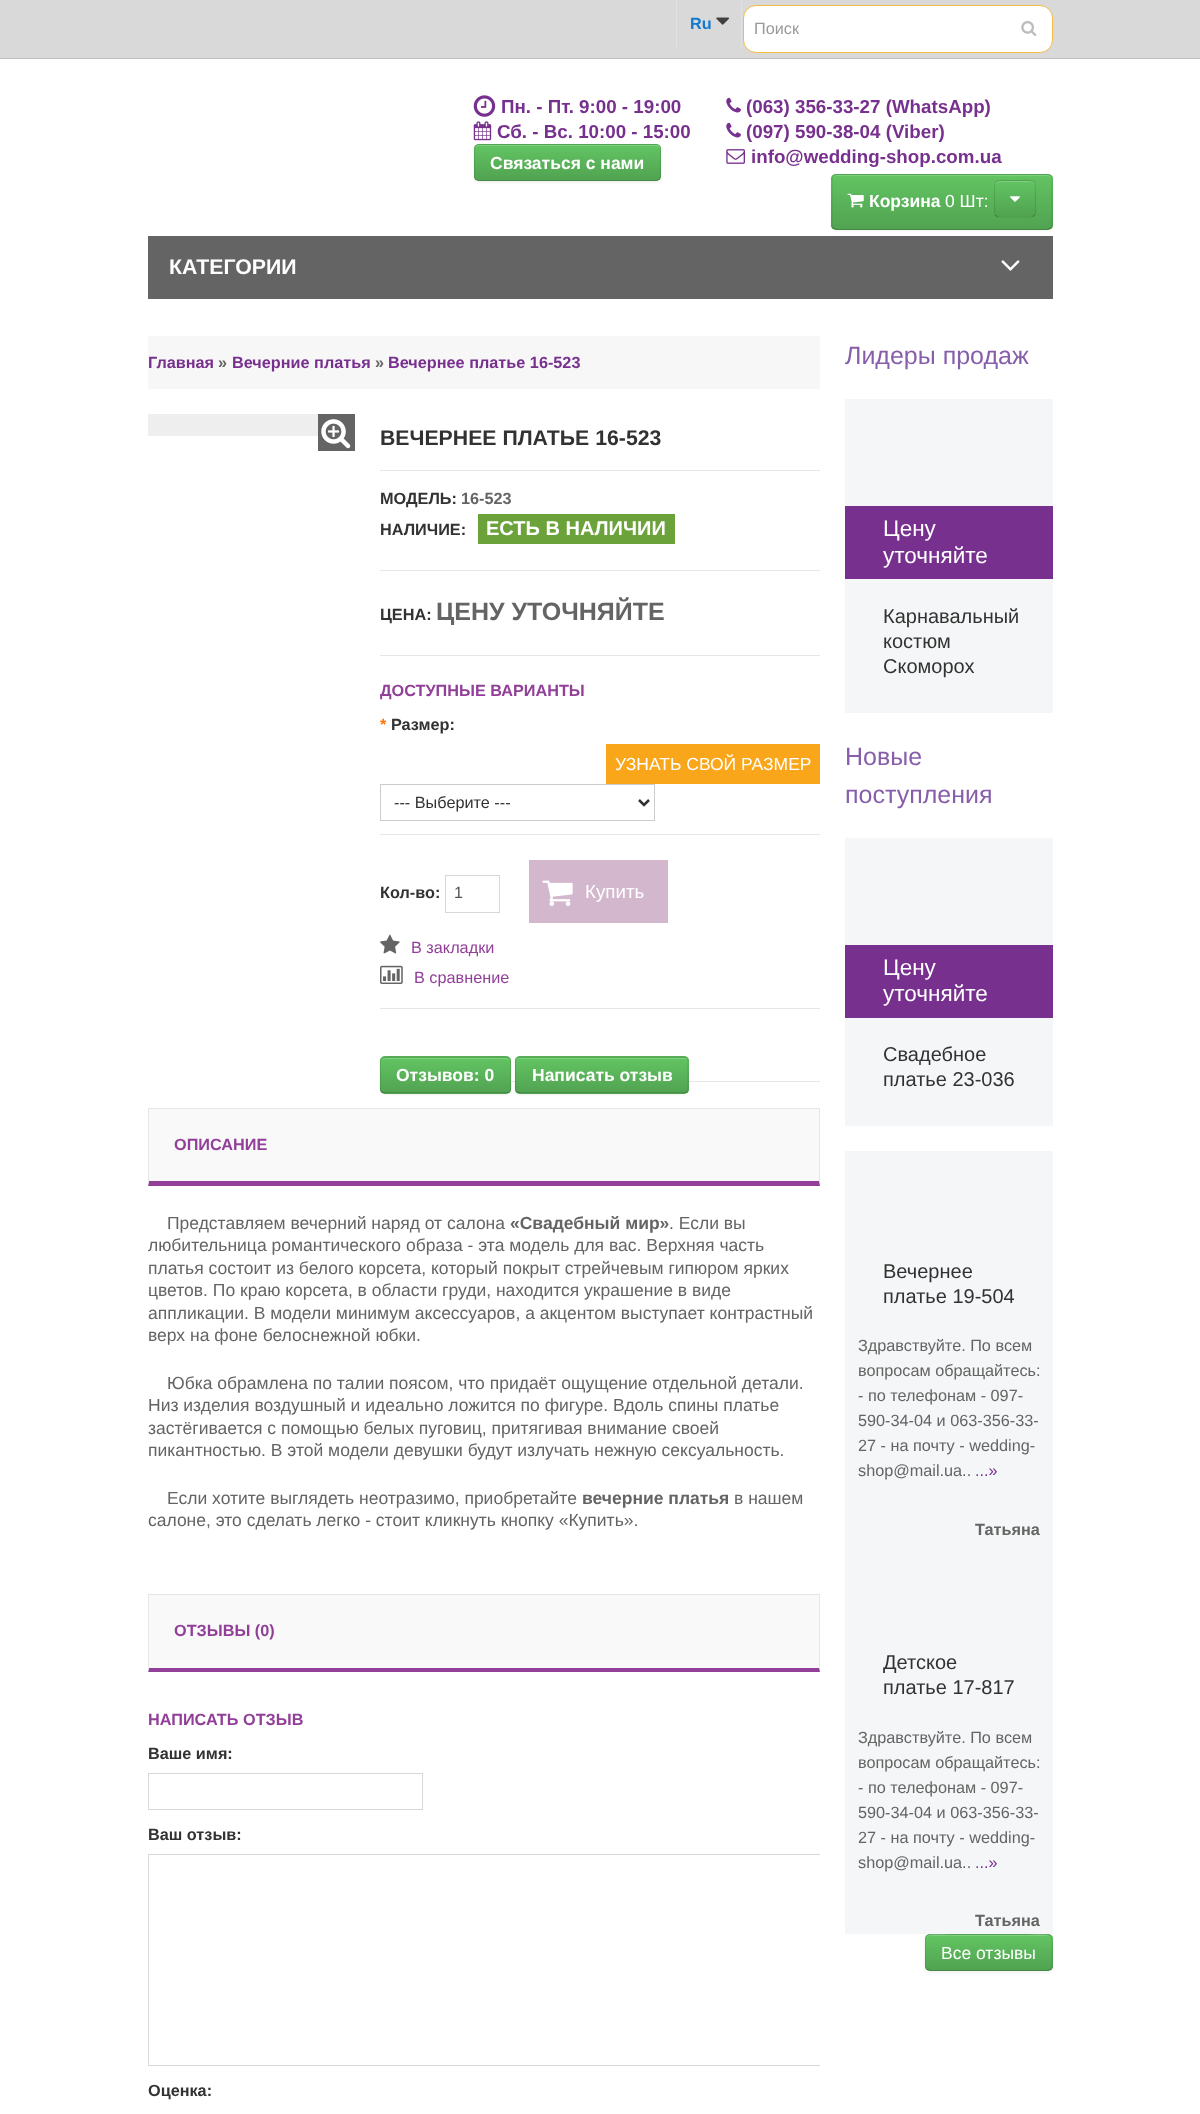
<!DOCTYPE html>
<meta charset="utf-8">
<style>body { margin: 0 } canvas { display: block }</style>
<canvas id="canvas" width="1200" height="2114"></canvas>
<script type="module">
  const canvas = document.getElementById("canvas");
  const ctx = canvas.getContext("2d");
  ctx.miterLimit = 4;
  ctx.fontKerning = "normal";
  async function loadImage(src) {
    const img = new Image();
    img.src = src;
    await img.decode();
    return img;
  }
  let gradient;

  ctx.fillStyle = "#ffffff";
  ctx.fillRect(0, 0, 1200, 2114);
  ctx.fillStyle = "#d9d9d9";
  ctx.fillRect(0, 0, 1200, 58);
  ctx.fillStyle = "#bdbdbd";
  ctx.fillRect(0, 58, 1200, 1);
  ctx.fillStyle = "#e1e1e1";
  ctx.fillRect(741, 0, 1, 48);
  ctx.fillRect(676, 0, 1, 48);
  ctx.font = "bold 16.25px Liberation Sans";
  ctx.fillStyle = "#1179cf";
  ctx.fillText("Ru", 690, 29);
  ctx.drawImage(await loadImage("img1.png"), 716, 17, 14, 8);
  ctx.fillStyle = "#ffffff";
  ctx.beginPath();
  ctx.roundRect(743.5, 5.5, 309, 47, 12.5);
  ctx.fill();
  ctx.strokeStyle = "#f6bb42";
  ctx.stroke();
  ctx.font = "16.25px Liberation Sans";
  ctx.fillStyle = "#999999";
  ctx.fillText("Поиск", 754, 34);
  ctx.drawImage(await loadImage("img2.png"), 1021, 21, 16, 15);
  ctx.drawImage(await loadImage("img3.png"), 473, 95, 23, 22);
  ctx.font = "bold 18.75px Liberation Sans";
  ctx.fillStyle = "#77308e";
  ctx.fillText("Пн. - Пт. 9:00 - 19:00", 501, 113);
  ctx.drawImage(await loadImage("img4.png"), 473, 121, 19, 20);
  ctx.fillText("Сб. - Вс. 10:00 - 15:00", 497, 138);
  ctx.fillStyle = "rgba(0, 0, 0, 0.05)";
  ctx.filter = "blur(1px)";
  ctx.beginPath();
  ctx.roundRect(474, 145, 187, 38, 5);
  ctx.fill();
  ctx.filter = "none";
  ctx.fillStyle = "#5bb75b";
  ctx.beginPath();
  ctx.roundRect(474, 144, 187, 37, 5);
  ctx.fill();
  ctx.save();
  ctx.beginPath();
  ctx.roundRect(474, 144, 187, 37, 5);
  ctx.clip();
  gradient = ctx.createLinearGradient(568, 145, 568, 180);
  gradient.addColorStop(0, "#62c462");
  gradient.addColorStop(1, "#51a351");
  ctx.fillStyle = gradient;
  ctx.fillRect(474, 145, 187, 35);
  ctx.restore();
  ctx.fillStyle = "#81d081";
  ctx.beginPath();
  ctx.moveTo(479, 146);
  ctx.lineTo(656, 146);
  ctx.bezierCurveTo(658, 146, 660, 148, 660, 150);
  ctx.bezierCurveTo(660, 147, 659, 145, 656, 145);
  ctx.lineTo(478, 145);
  ctx.bezierCurveTo(476, 146, 475, 148, 475, 150);
  ctx.bezierCurveTo(475, 148, 477, 146, 479, 146);
  ctx.closePath();
  ctx.fill();
  ctx.beginPath();
  ctx.moveTo(659.5, 179.5);
  ctx.bezierCurveTo(658.5, 180, 657.5, 180.5, 656, 180.5);
  ctx.lineTo(479, 180.5);
  ctx.bezierCurveTo(477.5, 180.5, 476.5, 180, 475.5, 179.5);
  ctx.strokeStyle = "rgba(0, 0, 0, 0.25)";
  ctx.lineWidth = 1.2;
  ctx.stroke();
  ctx.beginPath();
  ctx.moveTo(475.5, 179.5);
  ctx.bezierCurveTo(475, 178.5, 474.5, 177.5, 474.5, 176);
  ctx.lineTo(474.5, 149);
  ctx.bezierCurveTo(474.5, 147.5, 475, 146.5, 475.5, 145.5);
  ctx.bezierCurveTo(476.5, 145, 477.5, 144.5, 479, 144.5);
  ctx.lineTo(656, 144.5);
  ctx.bezierCurveTo(657.5, 144.5, 658.5, 145, 659.5, 145.5);
  ctx.bezierCurveTo(660, 146.5, 660.5, 147.5, 660.5, 149);
  ctx.lineTo(660.5, 176);
  ctx.bezierCurveTo(660.5, 177.5, 660, 178.5, 659.5, 179.5);
  ctx.strokeStyle = "rgba(0, 0, 0, 0.1)";
  ctx.stroke();
  ctx.font = "bold 17.5px Liberation Sans";
  ctx.fillStyle = "#ffffff";
  ctx.fillText("Связаться с нами", 490, 169);
  ctx.drawImage(await loadImage("img5.png"), 726, 97, 15, 16);
  ctx.font = "bold 18.75px Liberation Sans";
  ctx.fillStyle = "#77308e";
  ctx.fillText("(063) 356-33-27 (WhatsApp)", 746, 113);
  ctx.drawImage(await loadImage("img5.png"), 726, 122, 15, 16);
  ctx.fillText("(097) 590-38-04 (Viber)", 746, 138);
  ctx.drawImage(await loadImage("img6.png"), 726, 149, 19, 15);
  ctx.fillText("info@wedding-shop.com.ua", 751, 163);
  ctx.fillStyle = "rgba(0, 0, 0, 0.05)";
  ctx.filter = "blur(1px)";
  ctx.beginPath();
  ctx.roundRect(831, 175, 222, 56, 5);
  ctx.fill();
  ctx.filter = "none";
  ctx.fillStyle = "#5bb75b";
  ctx.beginPath();
  ctx.roundRect(831, 174, 222, 56, 5);
  ctx.fill();
  ctx.save();
  ctx.beginPath();
  ctx.roundRect(831, 174, 222, 56, 5);
  ctx.clip();
  gradient = ctx.createLinearGradient(942, 175, 942, 229);
  gradient.addColorStop(0, "#62c462");
  gradient.addColorStop(1, "#51a351");
  ctx.fillStyle = gradient;
  ctx.fillRect(831, 175, 222, 54);
  ctx.restore();
  ctx.fillStyle = "#81d081";
  ctx.beginPath();
  ctx.moveTo(836, 176);
  ctx.lineTo(1048, 176);
  ctx.lineTo(1050, 177);
  ctx.lineTo(1051, 180);
  ctx.lineTo(1051, 179);
  ctx.bezierCurveTo(1051, 177, 1049, 175, 1047, 175);
  ctx.lineTo(837, 175);
  ctx.bezierCurveTo(836, 175, 834, 176, 834, 177);
  ctx.closePath();
  ctx.fill();
  ctx.beginPath();
  ctx.moveTo(1050.5, 228);
  ctx.lineTo(1047.5, 229.5);
  ctx.lineTo(836, 229.5);
  ctx.lineTo(833, 228);
  ctx.strokeStyle = "rgba(0, 0, 0, 0.25)";
  ctx.stroke();
  ctx.beginPath();
  ctx.moveTo(833, 228);
  ctx.bezierCurveTo(832.5, 227.5, 832, 226, 832, 225);
  ctx.lineTo(832, 179);
  ctx.bezierCurveTo(832, 177.5, 832.5, 176.5, 833, 175.5);
  ctx.bezierCurveTo(834, 175, 835, 174.5, 836, 174.5);
  ctx.lineTo(1047.5, 174.5);
  ctx.bezierCurveTo(1048.5, 174.5, 1050, 175, 1050.5, 175.5);
  ctx.bezierCurveTo(1051.5, 176.5, 1052, 177.5, 1052, 179);
  ctx.lineTo(1052, 225);
  ctx.bezierCurveTo(1052, 226, 1051.5, 227.5, 1050.5, 228);
  ctx.strokeStyle = "rgba(0, 0, 0, 0.1)";
  ctx.stroke();
  ctx.drawImage(await loadImage("img7.png"), 847, 193, 17, 15);
  ctx.font = "bold 17.5px Liberation Sans";
  ctx.fillStyle = "#ffffff";
  ctx.fillText("Корзина", 869, 207);
  ctx.font = "17.5px Liberation Sans";
  ctx.fillText("0 Шт:", 945, 207);
  ctx.fillStyle = "#5bb75b";
  ctx.beginPath();
  ctx.roundRect(994, 180, 42, 38, 5);
  ctx.fill();
  ctx.save();
  ctx.beginPath();
  ctx.roundRect(994, 180, 42, 38, 5);
  ctx.clip();
  gradient = ctx.createLinearGradient(1015, 181, 1015, 216);
  gradient.addColorStop(0, "#62c462");
  gradient.addColorStop(1, "#51a351");
  ctx.fillStyle = gradient;
  ctx.fillRect(994, 181, 42, 35);
  ctx.restore();
  ctx.fillStyle = "#81d081";
  ctx.beginPath();
  ctx.moveTo(999, 182);
  ctx.lineTo(1031, 182);
  ctx.bezierCurveTo(1033, 182, 1035, 184, 1035, 186);
  ctx.bezierCurveTo(1035, 180, 1030, 181, 1026, 181);
  ctx.lineTo(1004, 181);
  ctx.bezierCurveTo(1000, 181, 995, 180, 995, 186);
  ctx.bezierCurveTo(995, 184, 997, 182, 999, 182);
  ctx.closePath();
  ctx.fill();
  ctx.beginPath();
  ctx.moveTo(1034.5, 215.5);
  ctx.bezierCurveTo(1033.5, 216.5, 1032.5, 217, 1031, 217);
  ctx.lineTo(999, 217);
  ctx.bezierCurveTo(997.5, 217, 996.5, 216.5, 995.5, 215.5);
  ctx.strokeStyle = "rgba(0, 0, 0, 0.25)";
  ctx.stroke();
  ctx.beginPath();
  ctx.moveTo(995.5, 215.5);
  ctx.bezierCurveTo(993.5, 213.5, 994.5, 210.5, 994.5, 208);
  ctx.lineTo(994.5, 199);
  ctx.bezierCurveTo(994.5, 177, 992, 180.5, 1015, 180.5);
  ctx.bezierCurveTo(1038, 180.5, 1035.5, 177, 1035.5, 199);
  ctx.lineTo(1035.5, 208);
  ctx.bezierCurveTo(1035.5, 210.5, 1036.5, 213.5, 1034.5, 215.5);
  ctx.strokeStyle = "rgba(0, 0, 0, 0.1)";
  ctx.stroke();
  ctx.drawImage(await loadImage("img8.png"), 1010, 196, 10, 6);
  ctx.fillStyle = "#646464";
  ctx.fillRect(148, 236, 905, 63);
  ctx.font = "bold 21.25px Liberation Sans";
  ctx.fillStyle = "#ffffff";
  ctx.fillText("КАТЕГОРИИ", 169, 274);
  ctx.drawImage(await loadImage("img9.png"), 1001, 260, 19, 11);
  ctx.fillStyle = "#f7f7f7";
  ctx.fillRect(148, 336, 672, 53);
  ctx.font = "bold 16.25px Liberation Sans";
  ctx.fillStyle = "#77308e";
  ctx.fillText("Главная", 148, 368);
  ctx.fillStyle = "#646464";
  ctx.fillText("»", 218, 368);
  ctx.fillStyle = "#77308e";
  ctx.fillText("Вечерние платья", 232, 368);
  ctx.fillStyle = "#646464";
  ctx.fillText("»", 375, 368);
  ctx.fillStyle = "#77308e";
  ctx.fillText("Вечернее платье 16-523", 388, 368);
  ctx.fillStyle = "#efeeee";
  ctx.fillRect(148, 414, 170, 22);
  ctx.fillStyle = "#646464";
  ctx.fillRect(318, 414, 37, 37);
  ctx.drawImage(await loadImage("img10.png"), 321, 419, 30, 30);
  ctx.fillStyle = "#e6e6e6";
  ctx.fillRect(380, 470, 440, 1);
  ctx.font = "bold 21.25px Liberation Sans";
  ctx.fillStyle = "#323232";
  ctx.fillText("ВЕЧЕРНЕЕ ПЛАТЬЕ 16-523", 380, 445);
  ctx.font = "bold 16.25px Liberation Sans";
  ctx.fillText("МОДЕЛЬ:", 380, 504);
  ctx.fillStyle = "#646464";
  ctx.fillText("16-523", 461, 504);
  ctx.fillStyle = "#323232";
  ctx.fillText("НАЛИЧИЕ:", 380, 535);
  ctx.fillStyle = "#6ba239";
  ctx.fillRect(478, 514, 197, 30);
  ctx.font = "bold 20px Liberation Sans";
  ctx.fillStyle = "#ffffff";
  ctx.fillText("ЕСТЬ В НАЛИЧИИ", 486, 535);
  ctx.fillStyle = "#e6e6e6";
  ctx.fillRect(380, 570, 440, 1);
  ctx.fillRect(380, 655, 440, 1);
  ctx.font = "bold 16.25px Liberation Sans";
  ctx.fillStyle = "#323232";
  ctx.fillText("ЦЕНА:", 380, 620);
  ctx.font = "bold 25px Liberation Sans";
  ctx.fillStyle = "#646464";
  ctx.fillText("ЦЕНУ УТОЧНЯЙТЕ", 436, 620);
  ctx.fillStyle = "#e6e6e6";
  ctx.fillRect(380, 834, 440, 1);
  ctx.font = "bold 16.25px Liberation Sans";
  ctx.fillStyle = "#913f98";
  ctx.fillText("ДОСТУПНЫЕ ВАРИАНТЫ", 380, 696);
  ctx.fillStyle = "#ff7409";
  ctx.fillText("*", 380, 730);
  ctx.fillStyle = "#323232";
  ctx.fillText("Размер:", 391, 730);
  ctx.strokeStyle = "#cccccc";
  ctx.lineWidth = 1;
  ctx.strokeRect(380.5, 784.5, 274, 36);
  ctx.beginPath();
  ctx.moveTo(639, 800);
  ctx.lineTo(644, 805);
  ctx.lineTo(649, 800);
  ctx.strokeStyle = "#323232";
  ctx.lineWidth = 2.5;
  ctx.stroke();
  ctx.font = "16.25px Liberation Sans";
  ctx.fillText("--- Выберите ---", 394, 808);
  ctx.fillStyle = "#faa61a";
  ctx.fillRect(606, 744, 214, 40);
  ctx.font = "17.5px Liberation Sans";
  ctx.fillStyle = "#ffffff";
  ctx.fillText("УЗНАТЬ СВОЙ РАЗМЕР", 615, 770);
  ctx.fillStyle = "#e6e6e6";
  ctx.fillRect(380, 1008, 440, 1);
  ctx.font = "bold 16.25px Liberation Sans";
  ctx.fillStyle = "#323232";
  ctx.fillText("Кол-во:", 380, 898);
  ctx.strokeStyle = "#d7d7d7";
  ctx.lineWidth = 1;
  ctx.strokeRect(445.5, 875.5, 54, 37);
  ctx.font = "16.25px Liberation Sans";
  ctx.fillStyle = "#555555";
  ctx.fillText("1", 454, 898);
  ctx.fillStyle = "#d2b7cd";
  ctx.fillRect(529, 860, 139, 63);
  ctx.drawImage(await loadImage("img11.png"), 542, 880, 31, 26);
  ctx.font = "18.75px Liberation Sans";
  ctx.fillStyle = "#ffffff";
  ctx.fillText("Купить", 585, 898);
  ctx.drawImage(await loadImage("img12.png"), 380, 934, 20, 20);
  ctx.font = "16.25px Liberation Sans";
  ctx.fillStyle = "#913f98";
  ctx.fillText("В закладки", 411, 953);
  ctx.drawImage(await loadImage("img13.png"), 380, 965, 23, 19);
  ctx.fillText("В сравнение", 414, 983);
  ctx.fillStyle = "#e6e6e6";
  ctx.fillRect(511, 1081, 309, 1);
  ctx.fillStyle = "rgba(0, 0, 0, 0.05)";
  ctx.filter = "blur(1px)";
  ctx.beginPath();
  ctx.roundRect(380, 1058, 131, 37, 5);
  ctx.fill();
  ctx.filter = "none";
  ctx.fillStyle = "#5bb75b";
  ctx.beginPath();
  ctx.roundRect(380, 1056, 131, 38, 5);
  ctx.fill();
  ctx.save();
  ctx.beginPath();
  ctx.roundRect(380, 1056, 131, 38, 5);
  ctx.clip();
  gradient = ctx.createLinearGradient(446, 1058, 446, 1093);
  gradient.addColorStop(0, "#62c462");
  gradient.addColorStop(1, "#51a351");
  ctx.fillStyle = gradient;
  ctx.fillRect(380, 1058, 131, 35);
  ctx.restore();
  ctx.fillStyle = "#81d081";
  ctx.beginPath();
  ctx.moveTo(385, 1059);
  ctx.lineTo(506, 1059);
  ctx.bezierCurveTo(508, 1059, 510, 1060, 510, 1062);
  ctx.bezierCurveTo(510, 1060, 508, 1058, 506, 1058);
  ctx.lineTo(385, 1058);
  ctx.bezierCurveTo(383, 1058, 381, 1060, 381, 1062);
  ctx.bezierCurveTo(381, 1060, 383, 1059, 385, 1059);
  ctx.closePath();
  ctx.fill();
  ctx.beginPath();
  ctx.moveTo(509.5, 1092);
  ctx.lineTo(506.5, 1093);
  ctx.lineTo(405, 1093);
  ctx.lineTo(385, 1093);
  ctx.lineTo(382, 1092);
  ctx.strokeStyle = "rgba(0, 0, 0, 0.25)";
  ctx.lineWidth = 1.2;
  ctx.stroke();
  ctx.beginPath();
  ctx.moveTo(382, 1092);
  ctx.bezierCurveTo(379, 1089, 380.5, 1082.5, 380.5, 1079.5);
  ctx.bezierCurveTo(380.5, 1052.5, 376, 1057, 405, 1057);
  ctx.lineTo(486, 1057);
  ctx.bezierCurveTo(515, 1057, 510.5, 1052.5, 510.5, 1079.5);
  ctx.bezierCurveTo(510.5, 1082.5, 512, 1089, 509.5, 1092);
  ctx.strokeStyle = "rgba(0, 0, 0, 0.1)";
  ctx.stroke();
  ctx.font = "bold 17.5px Liberation Sans";
  ctx.fillStyle = "#ffffff";
  ctx.fillText("Отзывов: 0", 396, 1081);
  ctx.fillStyle = "rgba(0, 0, 0, 0.05)";
  ctx.filter = "blur(1px)";
  ctx.beginPath();
  ctx.roundRect(515, 1058, 174, 37, 5);
  ctx.fill();
  ctx.filter = "none";
  ctx.fillStyle = "#5bb75b";
  ctx.beginPath();
  ctx.roundRect(515, 1056, 174, 38, 5);
  ctx.fill();
  ctx.save();
  ctx.beginPath();
  ctx.roundRect(515, 1056, 174, 38, 5);
  ctx.clip();
  gradient = ctx.createLinearGradient(602, 1058, 602, 1093);
  gradient.addColorStop(0, "#62c462");
  gradient.addColorStop(1, "#51a351");
  ctx.fillStyle = gradient;
  ctx.fillRect(515, 1058, 174, 35);
  ctx.restore();
  ctx.fillStyle = "#81d081";
  ctx.beginPath();
  ctx.moveTo(520, 1059);
  ctx.lineTo(684, 1059);
  ctx.bezierCurveTo(686, 1059, 688, 1060, 688, 1062);
  ctx.bezierCurveTo(688, 1060, 686, 1058, 684, 1058);
  ctx.lineTo(520, 1058);
  ctx.bezierCurveTo(518, 1058, 516, 1060, 516, 1062);
  ctx.bezierCurveTo(516, 1060, 518, 1059, 520, 1059);
  ctx.closePath();
  ctx.fill();
  ctx.beginPath();
  ctx.moveTo(687, 1092);
  ctx.bezierCurveTo(686, 1092.5, 685, 1093, 684, 1093);
  ctx.lineTo(520, 1093);
  ctx.bezierCurveTo(519, 1093, 517.5, 1092.5, 517, 1092);
  ctx.strokeStyle = "rgba(0, 0, 0, 0.25)";
  ctx.stroke();
  ctx.beginPath();
  ctx.moveTo(517, 1092);
  ctx.bezierCurveTo(516, 1091, 515.5, 1090, 515.5, 1089);
  ctx.lineTo(515.5, 1061);
  ctx.bezierCurveTo(515.5, 1060, 516, 1059, 517, 1058);
  ctx.bezierCurveTo(517.5, 1057.5, 519, 1057, 520, 1057);
  ctx.lineTo(684, 1057);
  ctx.bezierCurveTo(685, 1057, 686, 1057.5, 687, 1058);
  ctx.bezierCurveTo(687.5, 1059, 688, 1060, 688, 1061);
  ctx.lineTo(688, 1089);
  ctx.bezierCurveTo(688, 1090, 687.5, 1091, 687, 1092);
  ctx.strokeStyle = "rgba(0, 0, 0, 0.1)";
  ctx.stroke();
  ctx.fillStyle = "#ffffff";
  ctx.fillText("Написать отзыв", 532, 1081);
  ctx.fillStyle = "#f9f9f9";
  ctx.fillRect(149, 1109, 670, 72);
  ctx.fillStyle = "#e6e6e6";
  ctx.fillRect(148, 1108, 672, 1);
  ctx.beginPath();
  ctx.moveTo(820, 1108);
  ctx.lineTo(820, 1186);
  ctx.lineTo(819, 1181);
  ctx.lineTo(819, 1109);
  ctx.closePath();
  ctx.fill();
  ctx.fillStyle = "#913f98";
  ctx.beginPath();
  ctx.moveTo(820, 1186);
  ctx.lineTo(148, 1186);
  ctx.lineTo(149, 1181);
  ctx.lineTo(819, 1181);
  ctx.closePath();
  ctx.fill();
  ctx.fillStyle = "#e6e6e6";
  ctx.beginPath();
  ctx.moveTo(148, 1186);
  ctx.lineTo(148, 1108);
  ctx.lineTo(149, 1109);
  ctx.lineTo(149, 1181);
  ctx.closePath();
  ctx.fill();
  ctx.font = "bold 16.25px Liberation Sans";
  ctx.fillStyle = "#913f98";
  ctx.fillText("ОПИСАНИЕ", 174, 1150);
  ctx.font = "17.5px Liberation Sans";
  ctx.fillStyle = "#646464";
  ctx.fillText("Представляем вечерний наряд от салона", 167, 1229);
  ctx.font = "bold 17.5px Liberation Sans";
  ctx.fillText("«Свадебный мир»", 510, 1229);
  ctx.font = "17.5px Liberation Sans";
  ctx.fillText(". Если вы", 669, 1229);
  ctx.fillText("любительница романтического образа - эта модель для вас. Верхняя часть", 148, 1251);
  ctx.fillText("платья состоит из белого корсета, который покрыт стрейчевым гипюром ярких", 148, 1274);
  ctx.fillText("цветов. По краю корсета, в области груди, находится украшение в виде", 148, 1296);
  ctx.fillText("аппликации. В модели минимум аксессуаров, а акцентом выступает контрастный", 148, 1319);
  ctx.fillText("верх на фоне белоснежной юбки.", 148, 1341);
  ctx.fillText("Юбка обрамлена по талии поясом, что придаёт ощущение отдельной детали.", 167, 1389);
  ctx.fillText("Низ изделия воздушный и идеально ложится по фигуре. Вдоль спины платье", 148, 1411);
  ctx.fillText("застёгивается с помощью белых пуговиц, притягивая внимание своей", 148, 1434);
  ctx.fillText("пикантностью. В этой модели девушки будут излучать нежную сексуальность.", 148, 1456);
  ctx.fillText("Если хотите выглядеть неотразимо, приобретайте", 167, 1504);
  ctx.font = "bold 17.5px Liberation Sans";
  ctx.fillText("вечерние платья", 582, 1504);
  ctx.font = "17.5px Liberation Sans";
  ctx.fillText("в нашем", 734, 1504);
  ctx.fillText("салоне, это сделать легко - стоит кликнуть кнопку «Купить».", 148, 1526);
  ctx.fillStyle = "#f9f9f9";
  ctx.fillRect(149, 1595, 670, 73);
  ctx.fillStyle = "#e6e6e6";
  ctx.fillRect(148, 1594, 672, 1);
  ctx.beginPath();
  ctx.moveTo(820, 1594);
  ctx.lineTo(820, 1672);
  ctx.lineTo(819, 1668);
  ctx.lineTo(819, 1595);
  ctx.closePath();
  ctx.fill();
  ctx.fillStyle = "#913f98";
  ctx.beginPath();
  ctx.moveTo(820, 1672);
  ctx.lineTo(148, 1672);
  ctx.lineTo(149, 1668);
  ctx.lineTo(819, 1668);
  ctx.closePath();
  ctx.fill();
  ctx.fillStyle = "#e6e6e6";
  ctx.beginPath();
  ctx.moveTo(148, 1672);
  ctx.lineTo(148, 1594);
  ctx.lineTo(149, 1595);
  ctx.lineTo(149, 1668);
  ctx.closePath();
  ctx.fill();
  ctx.font = "bold 16.25px Liberation Sans";
  ctx.fillStyle = "#913f98";
  ctx.fillText("ОТЗЫВЫ (0)", 174, 1636);
  ctx.fillText("НАПИСАТЬ ОТЗЫВ", 148, 1725);
  ctx.fillStyle = "#323232";
  ctx.fillText("Ваше имя:", 148, 1759);
  ctx.strokeStyle = "#d7d7d7";
  ctx.lineWidth = 1;
  ctx.strokeRect(148.5, 1773.5, 274, 36);
  ctx.fillText("Ваш отзыв:", 148, 1840);
  ctx.save();
  ctx.beginPath();
  ctx.rect(148, 1673, 672, 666);
  ctx.clip();
  ctx.strokeRect(148.5, 1854.5, 675, 211);
  ctx.restore();
  ctx.fillText("Оценка:", 148, 2096);
  ctx.font = "25px Liberation Sans";
  ctx.fillStyle = "#875eaa";
  ctx.fillText("Лидеры продаж", 845, 364);
  ctx.fillStyle = "#f5f6f7";
  ctx.fillRect(845, 399, 208, 314);
  ctx.fillStyle = "#77308e";
  ctx.fillRect(845, 506, 208, 73);
  ctx.font = "22.5px Liberation Sans";
  ctx.fillStyle = "#ffffff";
  ctx.fillText("Цену", 883, 536);
  ctx.fillText("уточняйте", 883, 563);
  ctx.font = "20px Liberation Sans";
  ctx.fillStyle = "#323232";
  ctx.fillText("Карнавальный", 883, 623);
  ctx.fillText("костюм", 883, 648);
  ctx.fillText("Скоморох", 883, 673);
  ctx.font = "25px Liberation Sans";
  ctx.fillStyle = "#875eaa";
  ctx.fillText("Новые", 845, 765);
  ctx.fillText("поступления", 845, 803);
  ctx.fillStyle = "#f5f6f7";
  ctx.fillRect(845, 838, 208, 288);
  ctx.fillStyle = "#77308e";
  ctx.fillRect(845, 945, 208, 73);
  ctx.font = "22.5px Liberation Sans";
  ctx.fillStyle = "#ffffff";
  ctx.fillText("Цену", 883, 975);
  ctx.fillText("уточняйте", 883, 1001);
  ctx.font = "20px Liberation Sans";
  ctx.fillStyle = "#323232";
  ctx.fillText("Свадебное", 883, 1061);
  ctx.fillText("платье 23-036", 883, 1086);
  ctx.fillStyle = "rgba(0, 0, 0, 0.05)";
  ctx.filter = "blur(1px)";
  ctx.beginPath();
  ctx.roundRect(925, 1935, 128, 38, 5);
  ctx.fill();
  ctx.filter = "none";
  ctx.fillStyle = "#5bb75b";
  ctx.beginPath();
  ctx.roundRect(925, 1934, 128, 37, 5);
  ctx.fill();
  ctx.save();
  ctx.beginPath();
  ctx.roundRect(925, 1934, 128, 37, 5);
  ctx.clip();
  gradient = ctx.createLinearGradient(989, 1935, 989, 1970);
  gradient.addColorStop(0, "#62c462");
  gradient.addColorStop(1, "#51a351");
  ctx.fillStyle = gradient;
  ctx.fillRect(925, 1935, 128, 35);
  ctx.restore();
  ctx.fillStyle = "rgba(255, 255, 255, 0.2)";
  ctx.beginPath();
  ctx.moveTo(930, 1936);
  ctx.lineTo(1048, 1936);
  ctx.bezierCurveTo(1050, 1936, 1051, 1938, 1051, 1940);
  ctx.bezierCurveTo(1051, 1930, 1030, 1935, 1028, 1935);
  ctx.lineTo(950, 1935);
  ctx.bezierCurveTo(947, 1935, 926, 1930, 926, 1940);
  ctx.bezierCurveTo(926, 1938, 928, 1936, 930, 1936);
  ctx.closePath();
  ctx.fill();
  ctx.beginPath();
  ctx.moveTo(1050.5, 1969.5);
  ctx.lineTo(1048, 1970.5);
  ctx.lineTo(949.5, 1970.5);
  ctx.lineTo(930, 1970.5);
  ctx.lineTo(927, 1969.5);
  ctx.strokeStyle = "rgba(0, 0, 0, 0.25)";
  ctx.lineWidth = 1.2;
  ctx.stroke();
  ctx.beginPath();
  ctx.moveTo(927, 1969.5);
  ctx.bezierCurveTo(924, 1966.5, 925.5, 1960, 925.5, 1957);
  ctx.bezierCurveTo(925.5, 1930, 921, 1934.5, 949.5, 1934.5);
  ctx.lineTo(1028, 1934.5);
  ctx.bezierCurveTo(1056.5, 1934.5, 1052, 1930, 1052, 1957);
  ctx.bezierCurveTo(1052, 1960, 1053.5, 1966.5, 1050.5, 1969.5);
  ctx.strokeStyle = "rgba(0, 0, 0, 0.1)";
  ctx.stroke();
  ctx.fillStyle = "#f5f6f7";
  ctx.fillRect(845, 1151, 208, 783);
  ctx.fillStyle = "#323232";
  ctx.fillText("Вечернее", 883, 1278);
  ctx.fillText("платье 19-504", 883, 1303);
  ctx.font = "16.25px Liberation Sans";
  ctx.fillStyle = "#646464";
  ctx.fillText("Здравствуйте. По всем", 858, 1351);
  ctx.fillText("вопросам обращайтесь:", 858, 1376);
  ctx.fillText("- по телефонам - 097-", 858, 1401);
  ctx.fillText("590-34-04 и 063-356-33-", 858, 1426);
  ctx.fillText("27 - на почту - wedding-", 858, 1451);
  ctx.fillText("shop@mail.ua..", 858, 1476);
  ctx.fillStyle = "#77308e";
  ctx.fillText("...»", 975, 1476);
  ctx.font = "bold 16.25px Liberation Sans";
  ctx.fillStyle = "#646464";
  ctx.fillText("Татьяна", 975, 1535);
  ctx.font = "20px Liberation Sans";
  ctx.fillStyle = "#323232";
  ctx.fillText("Детское", 883, 1669);
  ctx.fillText("платье 17-817", 883, 1694);
  ctx.font = "16.25px Liberation Sans";
  ctx.fillStyle = "#646464";
  ctx.fillText("Здравствуйте. По всем", 858, 1743);
  ctx.fillText("вопросам обращайтесь:", 858, 1768);
  ctx.fillText("- по телефонам - 097-", 858, 1793);
  ctx.fillText("590-34-04 и 063-356-33-", 858, 1818);
  ctx.fillText("27 - на почту - wedding-", 858, 1843);
  ctx.fillText("shop@mail.ua..", 858, 1868);
  ctx.fillStyle = "#77308e";
  ctx.fillText("...»", 975, 1868);
  ctx.font = "bold 16.25px Liberation Sans";
  ctx.fillStyle = "#646464";
  ctx.fillText("Татьяна", 975, 1926);
  ctx.font = "17.5px Liberation Sans";
  ctx.fillStyle = "#ffffff";
  ctx.fillText("Все отзывы", 941, 1959);
</script>
